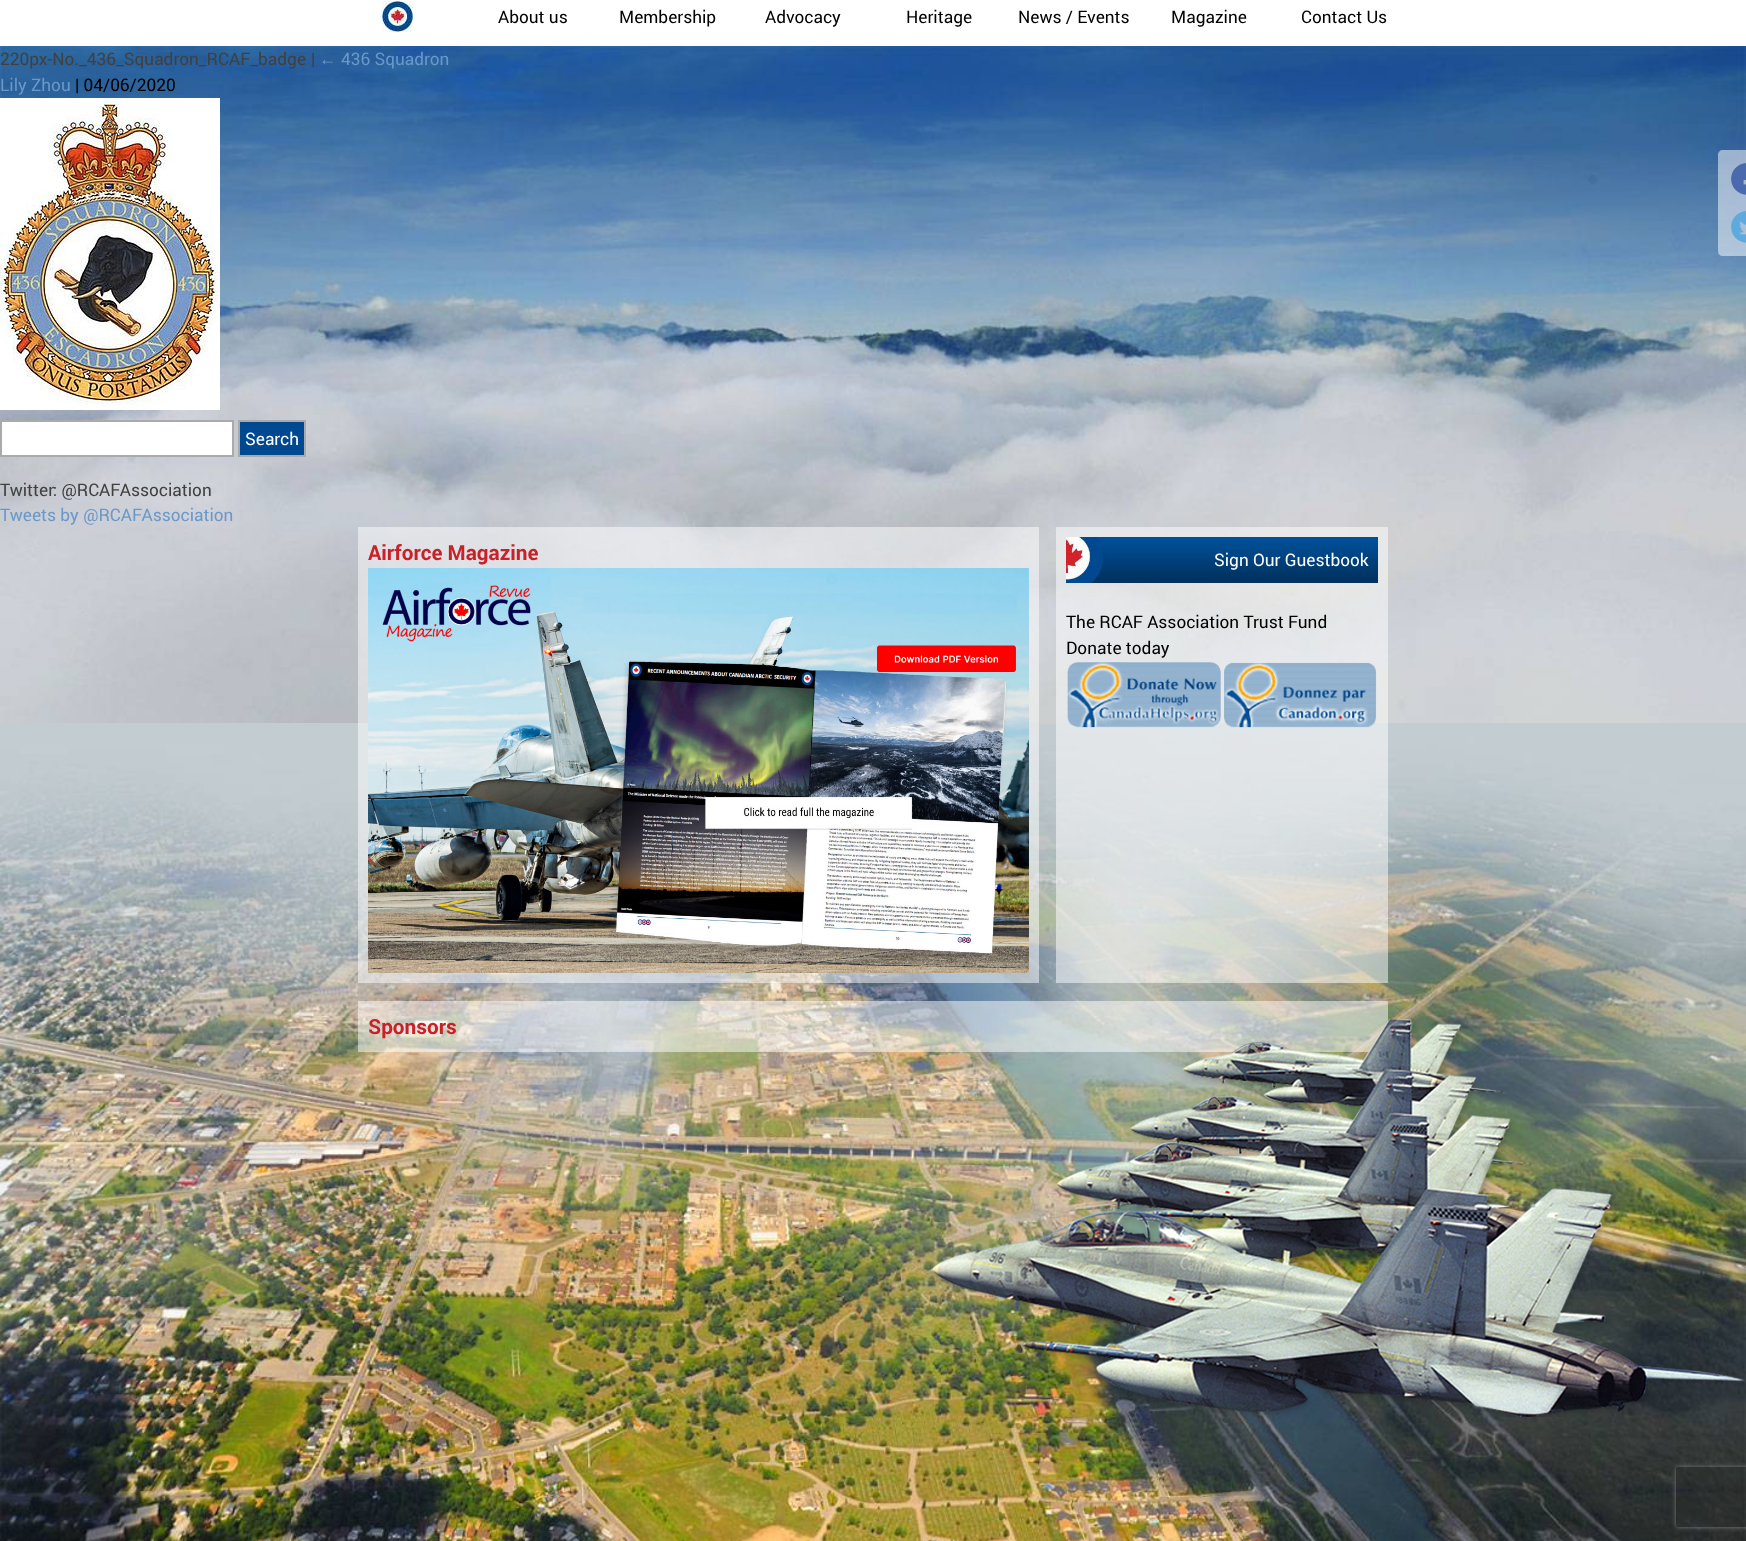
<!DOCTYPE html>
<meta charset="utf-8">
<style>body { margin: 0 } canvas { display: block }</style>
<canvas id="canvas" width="1746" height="1541"></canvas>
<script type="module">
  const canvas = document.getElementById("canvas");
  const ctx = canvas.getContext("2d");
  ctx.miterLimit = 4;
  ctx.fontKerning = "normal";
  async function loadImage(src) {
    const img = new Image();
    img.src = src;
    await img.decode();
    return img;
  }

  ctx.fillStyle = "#ffffff";
  ctx.fillRect(0, 0, 1746, 1541);
  ctx.drawImage(await loadImage("img1.png"), 382, 1, 31, 31);
  ctx.font = "17.25px Roboto";
  ctx.fillStyle = "#000000";
  ctx.fillText("About us", 498, 23);
  ctx.fillText("Membership", 619, 23);
  ctx.fillText("Advocacy", 765, 23);
  ctx.fillText("Heritage", 906, 23);
  ctx.fillText("News / Events", 1018, 23);
  ctx.fillText("Magazine", 1171, 23);
  ctx.fillText("Contact Us", 1301, 23);
  ctx.drawImage(await loadImage("img2.png"), 0, 46, 1746, 677);
  ctx.fillStyle = "rgba(255, 255, 255, 0.5)";
  ctx.beginPath();
  ctx.moveTo(1723, 150);
  ctx.lineTo(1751, 150);
  ctx.lineTo(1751, 256);
  ctx.lineTo(1723, 256);
  ctx.bezierCurveTo(1720, 256, 1718, 254, 1718, 251);
  ctx.lineTo(1718, 155);
  ctx.bezierCurveTo(1718, 152, 1720, 150, 1723, 150);
  ctx.closePath();
  ctx.fill();
  ctx.drawImage(await loadImage("img3.png"), 1731, 163, 15, 32);
  ctx.drawImage(await loadImage("img4.png"), 1731, 211, 15, 32);
  ctx.fillStyle = "#404040";
  ctx.fillText("220px-No._436_Squadron_RCAF_badge", 0, 65);
  ctx.fillText("|", 311, 65);
  ctx.font = "17.25px Liberation Sans";
  ctx.fillStyle = "#6998c9";
  ctx.fillText("←", 319, 65);
  ctx.font = "17.25px Roboto";
  ctx.fillText("436 Squadron", 341, 65);
  ctx.fillText("Lily Zhou", 0, 91);
  ctx.fillStyle = "#000000";
  ctx.fillText("| 04/06/2020", 75, 91);
  ctx.drawImage(await loadImage("img5.png"), 0, 98, 220, 312);
  ctx.fillStyle = "#ffffff";
  ctx.beginPath();
  ctx.rect(1, 421, 232, 35);
  ctx.fill();
  ctx.strokeStyle = "#aaaaaa";
  ctx.lineWidth = 2;
  ctx.stroke();
  ctx.fillStyle = "#004990";
  ctx.beginPath();
  ctx.rect(239, 421, 66, 35);
  ctx.fill();
  ctx.stroke();
  ctx.fillStyle = "#ffffff";
  ctx.fillText("Search", 245, 445);
  ctx.fillStyle = "#404040";
  ctx.fillText("Twitter: @RCAFAssociation", 0, 496);
  ctx.fillStyle = "#6998c9";
  ctx.fillText("Tweets by @RCAFAssociation", 0, 521);
  ctx.drawImage(await loadImage("img11.png"), 0, 723, 1746, 818);
  ctx.fillStyle = "rgba(255, 255, 255, 0.5)";
  ctx.fillRect(358, 527, 681, 456);
  ctx.font = "bold 20.75px Roboto";
  ctx.fillStyle = "#c82128";
  ctx.fillText("Airforce Magazine", 368, 560);
  ctx.drawImage(await loadImage("img6.png"), 368, 568, 661, 405);
  ctx.fillStyle = "rgba(255, 255, 255, 0.5)";
  ctx.fillRect(1056, 527, 332, 456);
  ctx.drawImage(await loadImage("img7.png"), 1066, 537, 312, 46);
  ctx.font = "17.25px Roboto";
  ctx.fillStyle = "#ffffff";
  ctx.fillText("Sign Our Guestbook", 1214, 566);
  ctx.fillStyle = "#000000";
  ctx.fillText("The RCAF Association Trust Fund", 1066, 628);
  ctx.fillText("Donate today", 1066, 654);
  ctx.drawImage(await loadImage("img8.png"), 1067, 662, 154, 66);
  ctx.drawImage(await loadImage("img9.png"), 1224, 662, 153, 66);
  ctx.fillStyle = "rgba(255, 255, 255, 0.5)";
  ctx.fillRect(358, 1001, 1030, 51);
  ctx.font = "bold 20.75px Roboto";
  ctx.fillStyle = "#c82128";
  ctx.fillText("Sponsors", 368, 1034);
  ctx.drawImage(await loadImage("img10.png"), 931, 1019, 814, 398);
  ctx.save();
  ctx.beginPath();
  ctx.moveTo(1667, 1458);
  ctx.lineTo(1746, 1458);
  ctx.lineTo(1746, 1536);
  ctx.lineTo(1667, 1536);
  ctx.closePath();
  ctx.moveTo(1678, 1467);
  ctx.lineTo(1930, 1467);
  ctx.bezierCurveTo(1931, 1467, 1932, 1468, 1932, 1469);
  ctx.lineTo(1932, 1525);
  ctx.bezierCurveTo(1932, 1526, 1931, 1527, 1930, 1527);
  ctx.lineTo(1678, 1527);
  ctx.bezierCurveTo(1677, 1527, 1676, 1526, 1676, 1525);
  ctx.lineTo(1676, 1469);
  ctx.bezierCurveTo(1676, 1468, 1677, 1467, 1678, 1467);
  ctx.closePath();
  ctx.clip("evenodd");
  ctx.fillStyle = "#808080";
  ctx.filter = "blur(2.5px)";
  ctx.beginPath();
  ctx.roundRect(1676, 1467, 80, 60, 2);
  ctx.fill();
  ctx.filter = "none";
  ctx.restore();
</script>
